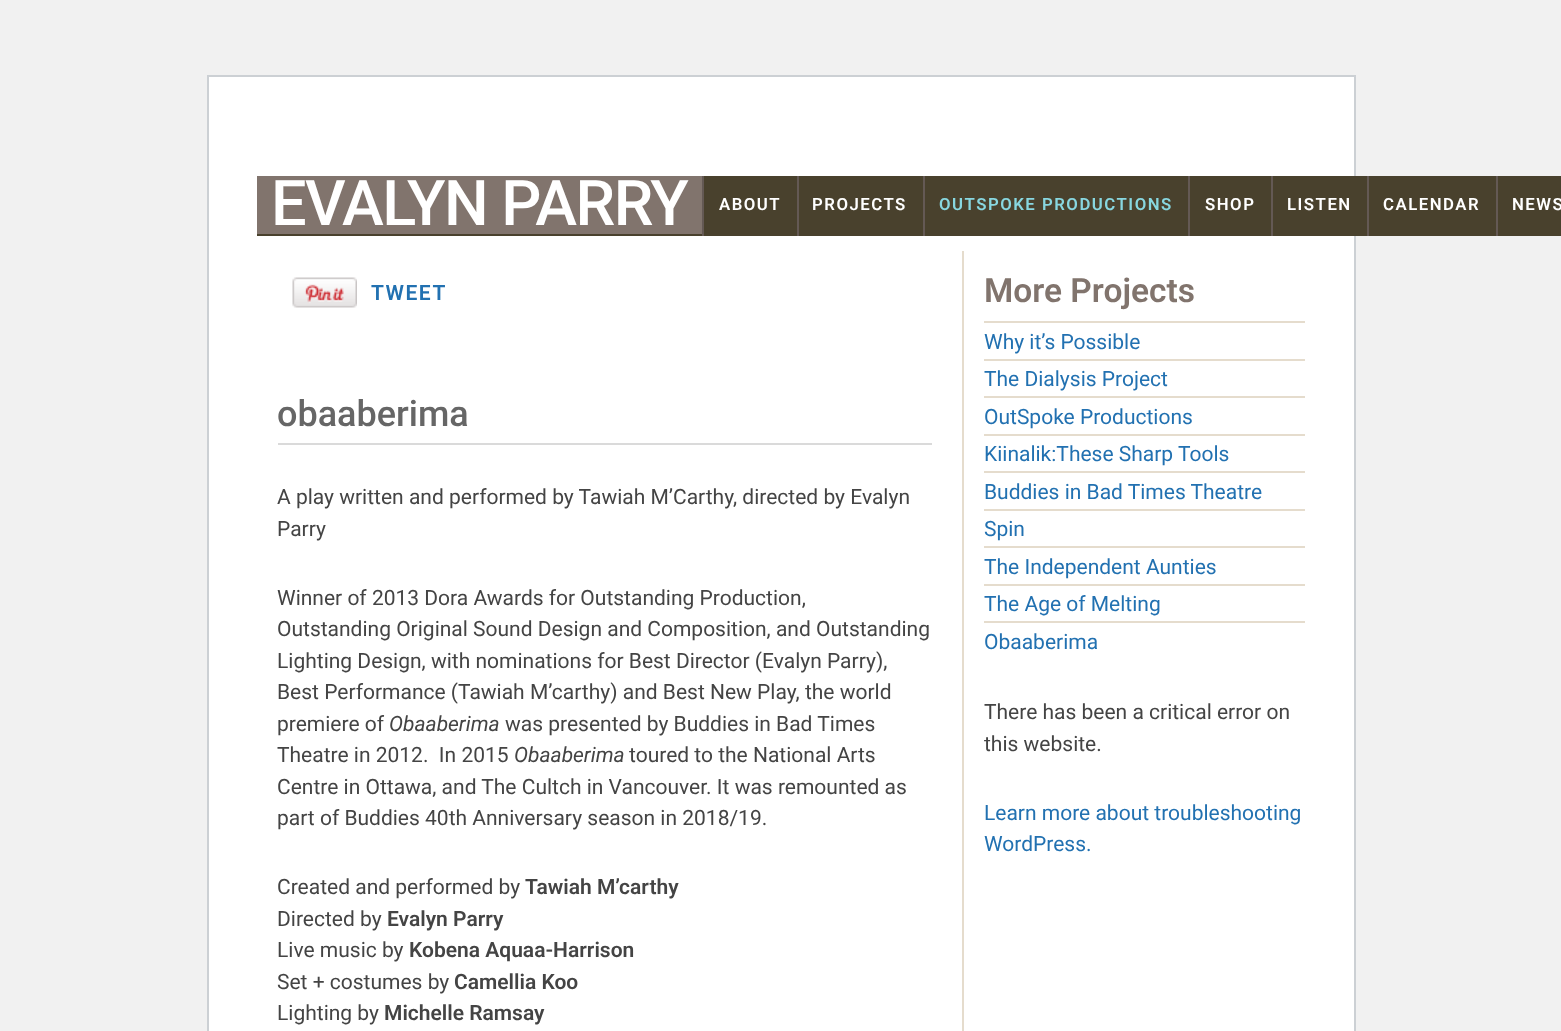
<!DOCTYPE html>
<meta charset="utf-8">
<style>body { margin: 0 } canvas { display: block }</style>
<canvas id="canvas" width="1561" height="1031"></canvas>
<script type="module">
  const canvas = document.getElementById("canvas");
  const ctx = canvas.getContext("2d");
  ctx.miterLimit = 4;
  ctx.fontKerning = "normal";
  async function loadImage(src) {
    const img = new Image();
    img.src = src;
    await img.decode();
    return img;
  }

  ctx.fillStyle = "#f1f1f1";
  ctx.fillRect(0, 0, 1561, 1031);
  ctx.fillStyle = "#ffffff";
  ctx.beginPath();
  ctx.rect(208, 76, 1147, 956);
  ctx.fill();
  ctx.strokeStyle = "#ccd0d4";
  ctx.lineWidth = 2;
  ctx.stroke();
  ctx.fillStyle = "#49412d";
  ctx.fillRect(257, 176, 1304, 60);
  ctx.fillStyle = "#81746d";
  ctx.fillRect(257, 176, 445, 58);
  ctx.letterSpacing = "-1.5px";
  ctx.font = "500 63px Roboto";
  ctx.fillStyle = "#ffffff";
  ctx.fillText("EVALYN PARRY", 271, 225);
  ctx.fillStyle = "#645954";
  ctx.fillRect(702, 176, 2, 60);
  ctx.letterSpacing = "1.5px";
  ctx.font = "600 16.75px Roboto";
  ctx.fillStyle = "#ffffff";
  ctx.fillText("ABOUT", 719, 210);
  ctx.fillStyle = "#645954";
  ctx.fillRect(797, 176, 2, 60);
  ctx.fillStyle = "#ffffff";
  ctx.fillText("PROJECTS", 812, 210);
  ctx.fillStyle = "#645954";
  ctx.fillRect(923, 176, 2, 60);
  ctx.fillStyle = "#88d7e0";
  ctx.fillText("OUTSPOKE PRODUCTIONS", 939, 210);
  ctx.fillStyle = "#645954";
  ctx.fillRect(1188, 176, 2, 60);
  ctx.fillStyle = "#ffffff";
  ctx.fillText("SHOP", 1205, 210);
  ctx.fillStyle = "#645954";
  ctx.fillRect(1271, 176, 2, 60);
  ctx.fillStyle = "#ffffff";
  ctx.fillText("LISTEN", 1287, 210);
  ctx.fillStyle = "#645954";
  ctx.fillRect(1367, 176, 2, 60);
  ctx.fillStyle = "#ffffff";
  ctx.fillText("CALENDAR", 1383, 210);
  ctx.fillStyle = "#645954";
  ctx.fillRect(1496, 176, 2, 60);
  ctx.fillStyle = "#ffffff";
  ctx.fillText("NEWS", 1512, 210);
  ctx.fillStyle = "#e5dccd";
  ctx.fillRect(962, 251, 2, 780);
  ctx.drawImage(await loadImage("img1.png"), 292, 277, 65, 31);
  ctx.font = "600 21px Roboto";
  ctx.fillStyle = "#2271b1";
  ctx.fillText("TWEET", 371, 300);
  ctx.fillStyle = "#dadada";
  ctx.fillRect(278, 443, 654, 2);
  ctx.letterSpacing = "0px";
  ctx.font = "500 36px Roboto";
  ctx.fillStyle = "#666666";
  ctx.fillText("obaaberima", 277, 426);
  ctx.font = "21px Roboto";
  ctx.fillStyle = "#444444";
  ctx.fillText("A play written and performed by Tawiah M’Carthy, directed by Evalyn", 277, 504);
  ctx.fillText("Parry", 277, 536);
  ctx.fillText("Winner of 2013 Dora Awards for Outstanding Production,", 277, 605);
  ctx.fillText("Outstanding Original Sound Design and Composition, and Outstanding", 277, 636);
  ctx.fillText("Lighting Design, with nominations for Best Director (Evalyn Parry),", 277, 668);
  ctx.fillText("Best Performance (Tawiah M’carthy) and Best New Play, the world", 277, 699);
  ctx.fillText("premiere of", 277, 731);
  ctx.font = "italic 21px Roboto";
  ctx.fillText("Obaaberima", 389, 731);
  ctx.font = "21px Roboto";
  ctx.fillText("was presented by Buddies in Bad Times", 505, 731);
  ctx.fillText("Theatre in 2012.  In 2015", 277, 762);
  ctx.font = "italic 21px Roboto";
  ctx.fillText("Obaaberima", 514, 762);
  ctx.font = "21px Roboto";
  ctx.fillText("toured to the National Arts", 629, 762);
  ctx.fillText("Centre in Ottawa, and The Cultch in Vancouver. It was remounted as", 277, 794);
  ctx.fillText("part of Buddies 40th Anniversary season in 2018/19.", 277, 825);
  ctx.fillText("Created and performed by", 277, 894);
  ctx.font = "600 21px Roboto";
  ctx.fillText("Tawiah M’carthy", 525, 894);
  ctx.font = "21px Roboto";
  ctx.fillText("Directed by", 277, 926);
  ctx.font = "600 21px Roboto";
  ctx.fillText("Evalyn Parry", 387, 926);
  ctx.font = "21px Roboto";
  ctx.fillText("Live music by", 277, 957);
  ctx.font = "600 21px Roboto";
  ctx.fillText("Kobena Aquaa-Harrison", 409, 957);
  ctx.font = "21px Roboto";
  ctx.fillText("Set + costumes by", 277, 989);
  ctx.font = "600 21px Roboto";
  ctx.fillText("Camellia Koo", 454, 989);
  ctx.font = "21px Roboto";
  ctx.fillText("Lighting by", 277, 1020);
  ctx.font = "600 21px Roboto";
  ctx.fillText("Michelle Ramsay", 384, 1020);
  ctx.font = "600 33.5px Roboto";
  ctx.fillStyle = "#81746d";
  ctx.fillText("More Projects", 984, 302);
  ctx.fillStyle = "#e5dccd";
  ctx.fillRect(984, 321, 321, 2);
  ctx.font = "21px Roboto";
  ctx.fillStyle = "#2271b1";
  ctx.fillText("Why it’s Possible", 984, 349);
  ctx.fillStyle = "#e5dccd";
  ctx.fillRect(984, 359, 321, 2);
  ctx.fillStyle = "#2271b1";
  ctx.fillText("The Dialysis Project", 984, 386);
  ctx.fillStyle = "#e5dccd";
  ctx.fillRect(984, 396, 321, 2);
  ctx.fillStyle = "#2271b1";
  ctx.fillText("OutSpoke Productions", 984, 424);
  ctx.fillStyle = "#e5dccd";
  ctx.fillRect(984, 434, 321, 2);
  ctx.fillStyle = "#2271b1";
  ctx.fillText("Kiinalik:These Sharp Tools", 984, 461);
  ctx.fillStyle = "#e5dccd";
  ctx.fillRect(984, 471, 321, 2);
  ctx.fillStyle = "#2271b1";
  ctx.fillText("Buddies in Bad Times Theatre", 984, 499);
  ctx.fillStyle = "#e5dccd";
  ctx.fillRect(984, 509, 321, 2);
  ctx.fillStyle = "#2271b1";
  ctx.fillText("Spin", 984, 536);
  ctx.fillStyle = "#e5dccd";
  ctx.fillRect(984, 546, 321, 2);
  ctx.fillStyle = "#2271b1";
  ctx.fillText("The Independent Aunties", 984, 574);
  ctx.fillStyle = "#e5dccd";
  ctx.fillRect(984, 584, 321, 2);
  ctx.fillStyle = "#2271b1";
  ctx.fillText("The Age of Melting", 984, 611);
  ctx.fillStyle = "#e5dccd";
  ctx.fillRect(984, 621, 321, 2);
  ctx.fillStyle = "#2271b1";
  ctx.fillText("Obaaberima", 984, 649);
  ctx.fillStyle = "#444444";
  ctx.fillText("There has been a critical error on", 984, 719);
  ctx.fillText("this website.", 984, 751);
  ctx.fillStyle = "#2271b1";
  ctx.fillText("Learn more about troubleshooting", 984, 820);
  ctx.fillText("WordPress.", 984, 851);
</script>
